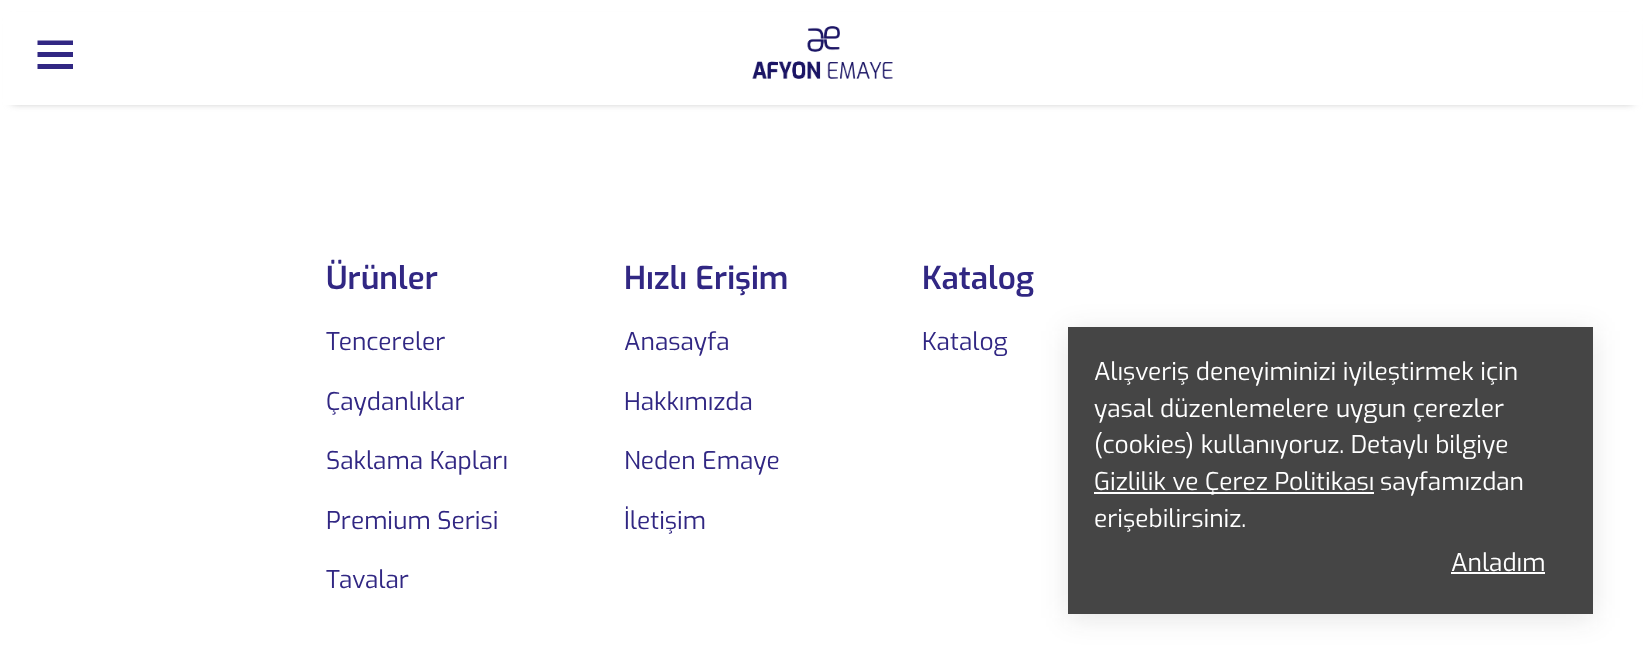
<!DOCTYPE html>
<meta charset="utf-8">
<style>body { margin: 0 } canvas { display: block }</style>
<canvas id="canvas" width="1645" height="666"></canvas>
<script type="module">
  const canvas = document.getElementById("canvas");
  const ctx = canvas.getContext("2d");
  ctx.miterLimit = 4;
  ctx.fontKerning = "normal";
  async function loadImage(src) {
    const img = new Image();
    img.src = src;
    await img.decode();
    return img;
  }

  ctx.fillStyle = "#ffffff";
  ctx.fillRect(0, 0, 1645, 666);
  ctx.font = "600 31.5px Exo";
  ctx.fillStyle = "#312783";
  ctx.fillText("Ürünler", 326, 289);
  ctx.font = "24.5px Exo";
  ctx.fillText("Tencereler", 326, 350);
  ctx.fillText("Çaydanlıklar", 326, 410);
  ctx.fillText("Saklama Kapları", 326, 469);
  ctx.fillText("Premium Serisi", 326, 529);
  ctx.fillText("Tavalar", 326, 588);
  ctx.font = "600 31.5px Exo";
  ctx.fillText("Hızlı Erişim", 624, 289);
  ctx.font = "24.5px Exo";
  ctx.fillText("Anasayfa", 624, 350);
  ctx.fillText("Hakkımızda", 624, 410);
  ctx.fillText("Neden Emaye", 624, 469);
  ctx.fillText("İletişim", 624, 529);
  ctx.font = "600 31.5px Exo";
  ctx.fillText("Katalog", 922, 289);
  ctx.font = "24.5px Exo";
  ctx.fillText("Katalog", 922, 350);
  ctx.fillStyle = "#989898";
  ctx.filter = "blur(4.5px)";
  ctx.beginPath();
  ctx.rect(12, 21, 1621, 81);
  ctx.fill();
  ctx.filter = "none";
  ctx.fillStyle = "#ffffff";
  ctx.fillRect(3, 12, 1639, 93);
  ctx.fillStyle = "#312783";
  ctx.beginPath();
  ctx.moveTo(73, 40.5);
  ctx.lineTo(73, 45);
  ctx.lineTo(37.5, 45);
  ctx.lineTo(37.5, 40.5);
  ctx.closePath();
  ctx.moveTo(37.5, 57);
  ctx.lineTo(73, 57);
  ctx.lineTo(73, 52);
  ctx.lineTo(37.5, 52);
  ctx.closePath();
  ctx.moveTo(37.5, 69);
  ctx.lineTo(73, 69);
  ctx.lineTo(73, 64);
  ctx.lineTo(37.5, 64);
  ctx.closePath();
  ctx.fill();
  ctx.drawImage(await loadImage("img1.png"), 752, 26, 141, 53);
  ctx.save();
  ctx.beginPath();
  ctx.moveTo(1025, 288);
  ctx.lineTo(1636, 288);
  ctx.lineTo(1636, 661);
  ctx.lineTo(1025, 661);
  ctx.closePath();
  ctx.moveTo(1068, 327);
  ctx.lineTo(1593, 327);
  ctx.lineTo(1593, 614);
  ctx.lineTo(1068, 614);
  ctx.closePath();
  ctx.clip("evenodd");
  ctx.fillStyle = "rgba(36, 36, 36, 0.12)";
  ctx.filter = "blur(14px)";
  ctx.beginPath();
  ctx.rect(1068, 331, 525, 287);
  ctx.fill();
  ctx.filter = "none";
  ctx.restore();
  ctx.fillStyle = "rgba(36, 36, 36, 0.85)";
  ctx.fillRect(1068, 327, 525, 287);
  ctx.fillStyle = "#ffffff";
  ctx.fillText("Alışveriş deneyiminizi iyileştirmek için", 1094, 380);
  ctx.fillText("yasal düzenlemelere uygun çerezler", 1094, 417);
  ctx.fillText("(cookies) kullanıyoruz. Detaylı bilgiye", 1094, 453);
  ctx.fillRect(1094, 492, 280, 2);
  ctx.fillText("Gizlilik ve Çerez Politikası", 1094, 490);
  ctx.fillText("sayfamızdan", 1380, 490);
  ctx.fillText("erişebilirsiniz.", 1094, 527);
  ctx.fillText("Anladım", 1451, 571);
  ctx.fillRect(1451, 572, 94, 2);
</script>
